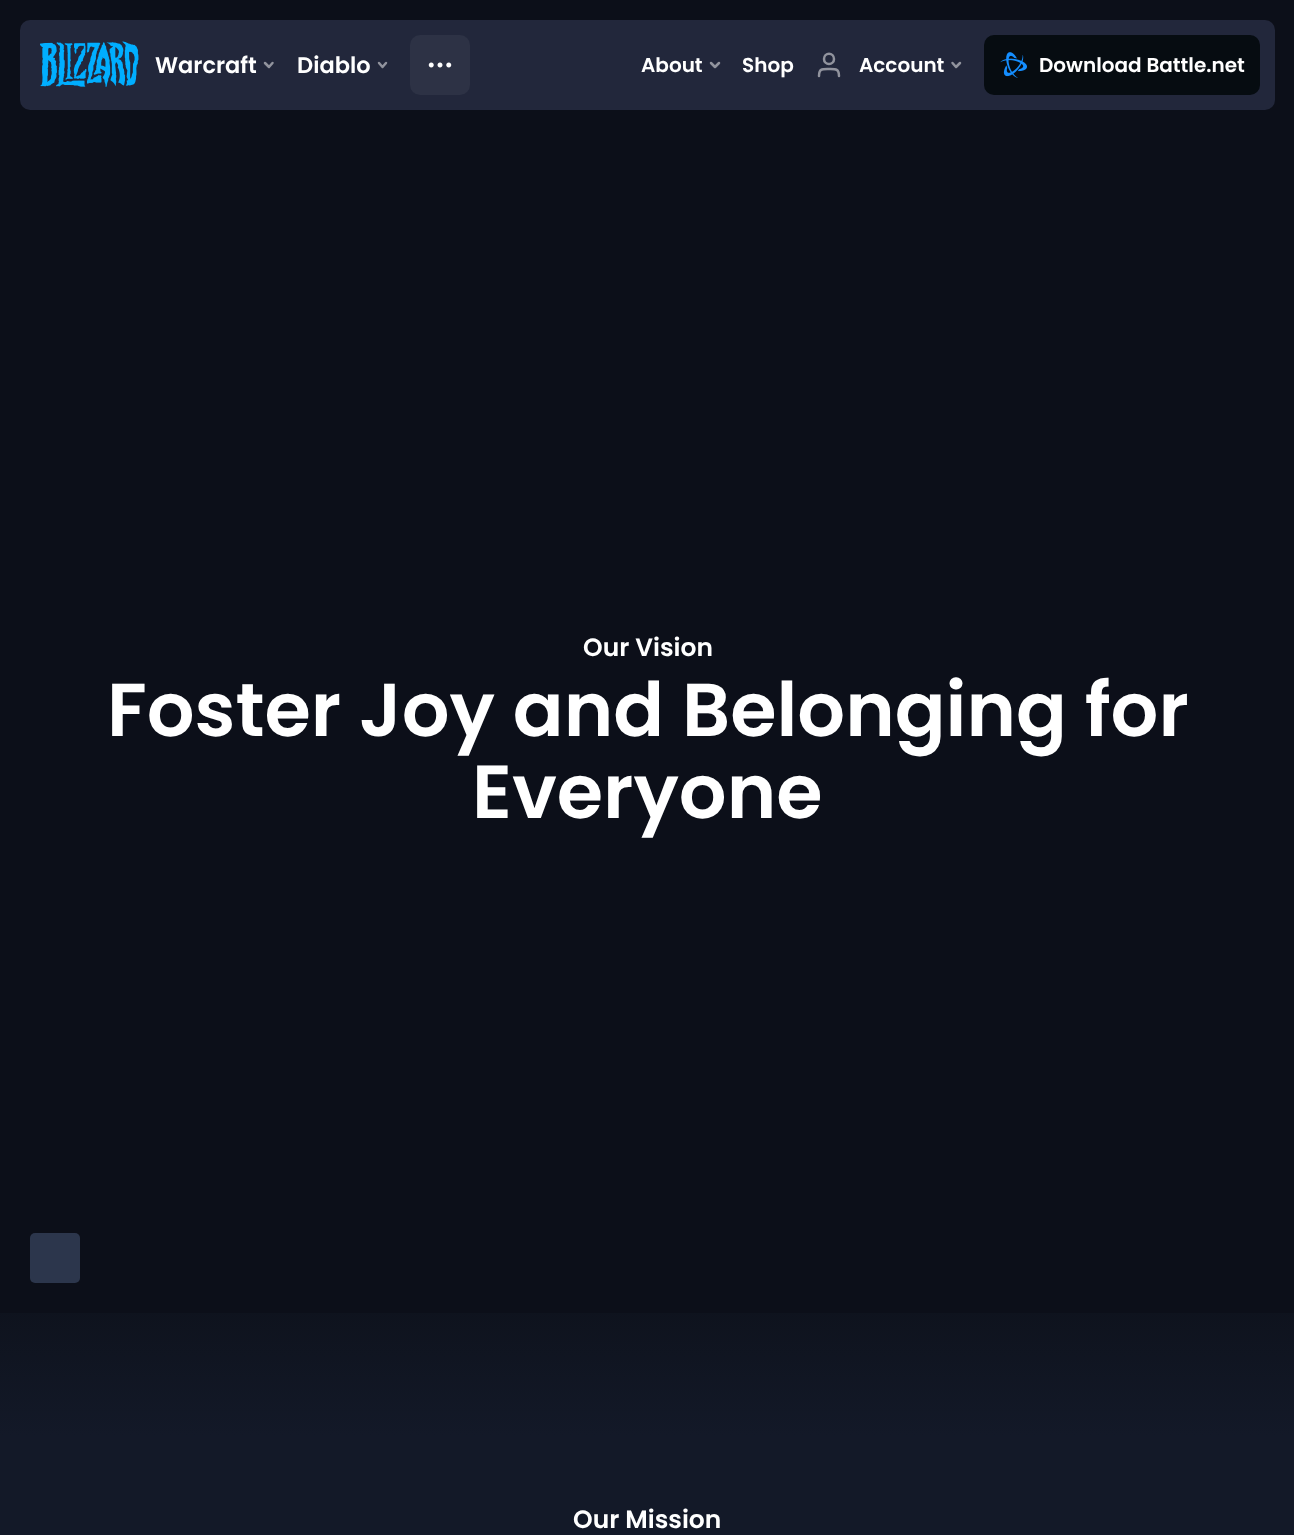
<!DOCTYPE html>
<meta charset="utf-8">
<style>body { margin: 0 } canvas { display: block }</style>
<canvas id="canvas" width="1294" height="1535"></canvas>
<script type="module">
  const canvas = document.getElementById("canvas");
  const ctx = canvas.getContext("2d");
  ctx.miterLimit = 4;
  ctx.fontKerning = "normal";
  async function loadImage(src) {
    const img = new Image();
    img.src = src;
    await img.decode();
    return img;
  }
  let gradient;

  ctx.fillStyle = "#0c0f19";
  ctx.fillRect(0, 0, 1294, 1535);
  ctx.fillStyle = "#22273b";
  ctx.beginPath();
  ctx.roundRect(20, 20, 1255, 90, 10);
  ctx.fill();
  ctx.drawImage(await loadImage("img1.png"), 40, 41, 99, 46);
  ctx.font = "600 22.5px Poppins";
  ctx.fillStyle = "#ffffff";
  ctx.fillText("Warcraft", 155, 73);
  ctx.beginPath();
  ctx.moveTo(265, 63);
  ctx.lineTo(269, 67);
  ctx.lineTo(272.5, 63);
  ctx.strokeStyle = "#91939d";
  ctx.lineWidth = 2.5;
  ctx.lineCap = "round";
  ctx.lineJoin = "round";
  ctx.stroke();
  ctx.fillText("Diablo", 297, 73);
  ctx.beginPath();
  ctx.moveTo(379, 63);
  ctx.lineTo(382.5, 67);
  ctx.lineTo(386, 63);
  ctx.stroke();
  ctx.fillStyle = "#2d3245";
  ctx.beginPath();
  ctx.roundRect(410, 35, 60, 60, 10);
  ctx.fill();
  ctx.drawImage(await loadImage("img2.png"), 428, 62, 24, 6);
  ctx.font = "600 20px Poppins";
  ctx.fillStyle = "#ffffff";
  ctx.fillText("About", 641, 72);
  ctx.beginPath();
  ctx.moveTo(711, 63);
  ctx.lineTo(715, 67);
  ctx.lineTo(719, 63);
  ctx.stroke();
  ctx.fillText("Shop", 742, 72);
  ctx.beginPath();
  ctx.moveTo(839, 76);
  ctx.bezierCurveTo(839, 68.5, 835.5, 69, 829, 69);
  ctx.bezierCurveTo(822, 69, 819, 68.5, 819, 76);
  ctx.moveTo(834, 59);
  ctx.bezierCurveTo(834, 65.5, 824, 65.5, 824, 59);
  ctx.bezierCurveTo(824, 52, 834, 52, 834, 59);
  ctx.stroke();
  ctx.fillText("Account", 859, 72);
  ctx.beginPath();
  ctx.moveTo(952.5, 63);
  ctx.lineTo(956, 67);
  ctx.lineTo(960, 63);
  ctx.stroke();
  ctx.fillStyle = "#060c11";
  ctx.beginPath();
  ctx.roundRect(984, 35, 276, 60, 10);
  ctx.fill();
  ctx.drawImage(await loadImage("img3.png"), 1000, 52, 27, 26);
  ctx.fillStyle = "#ffffff";
  ctx.fillText("Download Battle.net", 1039, 72);
  ctx.font = "600 25px Poppins";
  ctx.fillText("Our Vision", 583, 656);
  ctx.font = "600 75px Poppins";
  ctx.fillText("Foster Joy and Belonging for", 107, 736);
  ctx.fillText("Everyone", 472, 818);
  ctx.fillStyle = "#2c364c";
  ctx.beginPath();
  ctx.roundRect(30, 1233, 50, 50, 5);
  ctx.fill();
  gradient = ctx.createLinearGradient(648, 1199, 648, 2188);
  gradient.addColorStop(0, "#0a0d14");
  gradient.addColorStop(0.24, "#131928");
  ctx.fillStyle = gradient;
  ctx.fillRect(0, 1313, 1294, 222);
  ctx.font = "600 25px Poppins";
  ctx.fillStyle = "#ffffff";
  ctx.fillText("Our Mission", 573, 1528);
</script>
